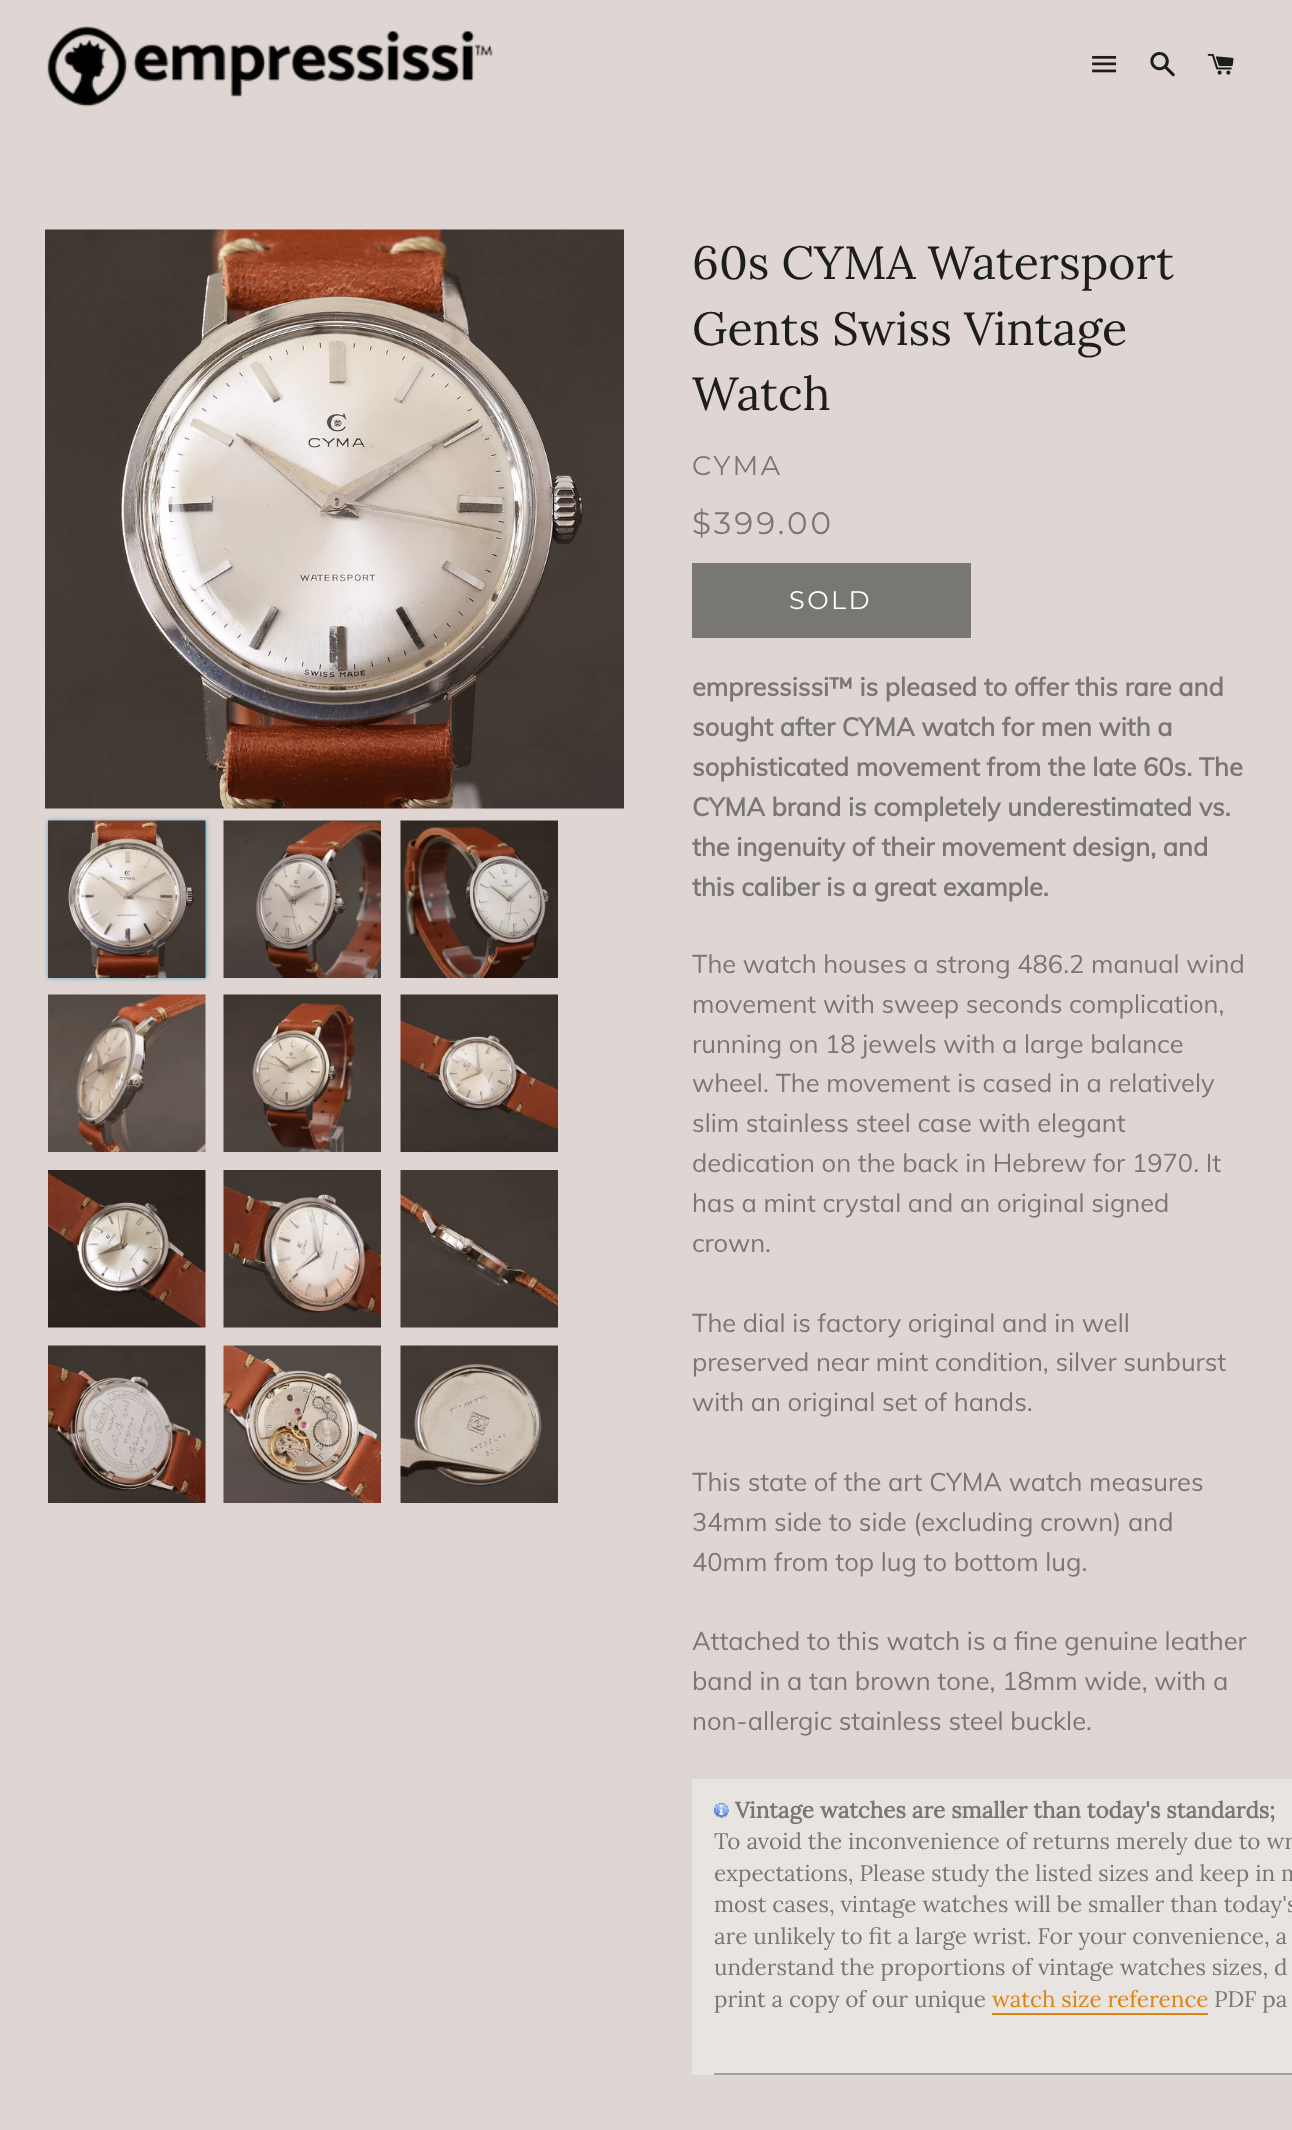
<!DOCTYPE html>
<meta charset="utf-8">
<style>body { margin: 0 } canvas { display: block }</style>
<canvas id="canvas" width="1292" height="2130"></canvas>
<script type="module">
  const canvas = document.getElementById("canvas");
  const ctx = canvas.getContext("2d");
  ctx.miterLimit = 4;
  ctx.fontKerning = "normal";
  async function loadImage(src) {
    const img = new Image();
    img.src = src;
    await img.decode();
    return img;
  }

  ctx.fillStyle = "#dfd5d2";
  ctx.fillRect(0, 0, 1292, 2130);
  ctx.drawImage(await loadImage("img1.png"), 47, 26, 446, 81);
  ctx.drawImage(await loadImage("img2.png"), 1092, 55, 25, 18);
  ctx.drawImage(await loadImage("img3.png"), 1150, 51, 25, 26);
  ctx.drawImage(await loadImage("img4.png"), 1207, 53, 27, 22);
  ctx.drawImage(await loadImage("img5.png"), 45, 229, 579, 580);
  ctx.fillStyle = "#4aa9d2";
  ctx.filter = "blur(2px)";
  ctx.beginPath();
  ctx.rect(48, 821, 158, 157);
  ctx.fill();
  ctx.filter = "none";
  ctx.drawImage(await loadImage("img6.png"), 48, 820, 158, 158);
  ctx.drawImage(await loadImage("img7.png"), 223, 820, 158, 158);
  ctx.drawImage(await loadImage("img8.png"), 400, 820, 158, 158);
  ctx.drawImage(await loadImage("img9.png"), 48, 994, 158, 158);
  ctx.drawImage(await loadImage("img10.png"), 223, 994, 158, 158);
  ctx.drawImage(await loadImage("img11.png"), 400, 994, 158, 158);
  ctx.drawImage(await loadImage("img12.png"), 48, 1170, 158, 158);
  ctx.drawImage(await loadImage("img13.png"), 223, 1170, 158, 158);
  ctx.drawImage(await loadImage("img14.png"), 400, 1170, 158, 158);
  ctx.drawImage(await loadImage("img15.png"), 48, 1345, 158, 158);
  ctx.drawImage(await loadImage("img16.png"), 223, 1345, 158, 158);
  ctx.drawImage(await loadImage("img17.png"), 400, 1345, 158, 158);
  ctx.font = "46.5px Lora";
  ctx.fillStyle = "#1c1d1d";
  ctx.fillText("60s CYMA Watersport", 692, 279);
  ctx.fillText("Gents Swiss Vintage", 692, 345);
  ctx.fillText("Watch", 692, 410);
  ctx.letterSpacing = "2.5px";
  ctx.font = "100 27px Montserrat";
  ctx.fillStyle = "#787774";
  ctx.fillText("CYMA", 692, 475);
  ctx.letterSpacing = "3px";
  ctx.font = "100 31px Montserrat";
  ctx.fillText("$399.00", 692, 534);
  ctx.fillRect(692, 563, 279, 75);
  ctx.letterSpacing = "2.5px";
  ctx.font = "100 25.5px Montserrat";
  ctx.fillStyle = "#ffffff";
  ctx.fillText("SOLD", 789, 609);
  ctx.letterSpacing = "0px";
  ctx.font = "bold 25.5px Muli";
  ctx.fillStyle = "#787774";
  ctx.fillText("empressissi™ is pleased to offer this rare and", 692, 696);
  ctx.fillText("sought after CYMA watch for men with a", 692, 736);
  ctx.fillText("sophisticated movement from the late 60s. The", 692, 776);
  ctx.fillText("CYMA brand is completely underestimated vs.", 692, 816);
  ctx.fillText("the ingenuity of their movement design, and", 692, 856);
  ctx.fillText("this caliber is a great example.", 692, 896);
  ctx.font = "25.5px Muli";
  ctx.fillText("The watch houses a strong 486.2 manual wind", 692, 973);
  ctx.fillText("movement with sweep seconds complication,", 692, 1013);
  ctx.fillText("running on 18 jewels with a large balance", 692, 1053);
  ctx.fillText("wheel. The movement is cased in a relatively", 692, 1092);
  ctx.fillText("slim stainless steel case with elegant", 692, 1132);
  ctx.fillText("dedication on the back in Hebrew for 1970. It", 692, 1172);
  ctx.fillText("has a mint crystal and an original signed", 692, 1212);
  ctx.fillText("crown.", 692, 1252);
  ctx.fillText("The dial is factory original and in well", 692, 1332);
  ctx.fillText("preserved near mint condition, silver sunburst", 692, 1371);
  ctx.fillText("with an original set of hands.", 692, 1411);
  ctx.fillText("This state of the art CYMA watch measures", 692, 1491);
  ctx.fillText("34mm side to side (excluding crown) and", 692, 1531);
  ctx.fillText("40mm from top lug to bottom lug.", 692, 1571);
  ctx.fillText("Attached to this watch is a fine genuine leather", 692, 1650);
  ctx.fillText("band in a tan brown tone, 18mm wide, with a", 692, 1690);
  ctx.fillText("non-allergic stainless steel buckle.", 692, 1730);
  ctx.fillStyle = "#e7e4e2";
  ctx.fillRect(692, 1779, 600, 296);
  ctx.drawImage(await loadImage("img18.png"), 714, 1803, 15, 15);
  ctx.font = "bold 22.5px Lora";
  ctx.fillStyle = "#787774";
  ctx.fillText("Vintage watches are smaller than today's standards;", 735, 1818);
  ctx.font = "22.5px Lora";
  ctx.fillText("To avoid the inconvenience of returns merely due to wr", 714, 1849);
  ctx.fillText("expectations, Please study the listed sizes and keep in m", 714, 1881);
  ctx.fillText("most cases, vintage watches will be smaller than today's", 714, 1912);
  ctx.fillText("are unlikely to fit a large wrist. For your convenience, a", 714, 1944);
  ctx.fillText("understand the proportions of vintage watches sizes, d", 714, 1975);
  ctx.fillText("print a copy of our unique", 714, 2007);
  ctx.fillStyle = "#de8311";
  ctx.fillText("watch size reference", 992, 2007);
  ctx.fillRect(992, 2013, 216, 2);
  ctx.fillStyle = "#787774";
  ctx.fillText("PDF pa", 1214, 2007);
  ctx.fillStyle = "#a3a09b";
  ctx.fillRect(714, 2073, 578, 2);
</script>
